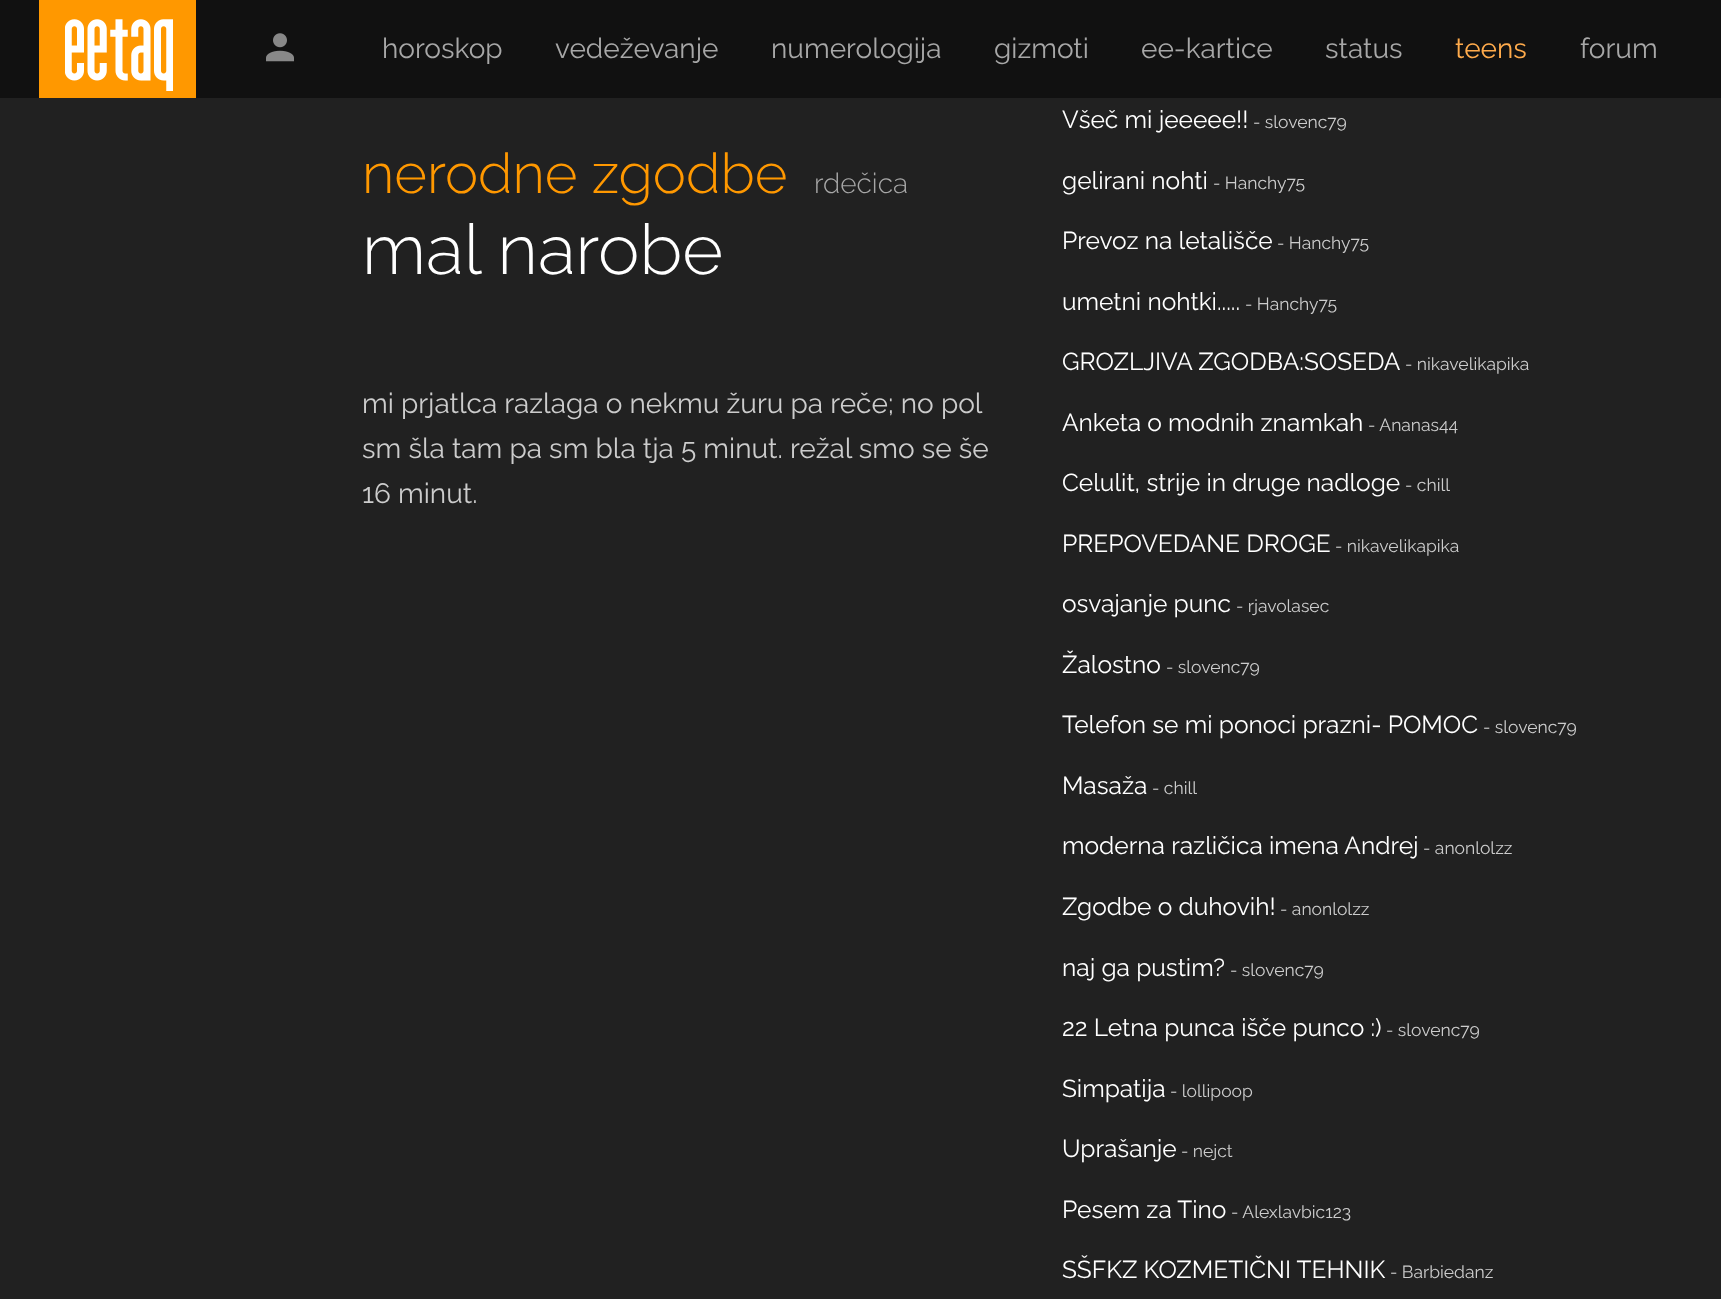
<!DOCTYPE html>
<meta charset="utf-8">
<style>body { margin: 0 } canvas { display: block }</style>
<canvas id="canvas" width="1721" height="1299"></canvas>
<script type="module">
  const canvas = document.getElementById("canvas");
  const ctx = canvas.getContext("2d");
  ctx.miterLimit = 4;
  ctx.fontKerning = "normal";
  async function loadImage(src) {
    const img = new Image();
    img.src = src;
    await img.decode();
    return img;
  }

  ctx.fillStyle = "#212121";
  ctx.fillRect(0, 0, 1721, 1299);
  ctx.fillStyle = "#111111";
  ctx.fillRect(0, 0, 1721, 98);
  ctx.fillStyle = "#ff9800";
  ctx.fillRect(39, 0, 157, 98);
  ctx.drawImage(await loadImage("img1.png"), 65, 19, 108, 72);
  ctx.drawImage(await loadImage("img2.png"), 266, 33, 28, 29);
  ctx.font = "28px Raleway";
  ctx.fillStyle = "#a7a7a7";
  ctx.fillText("horoskop", 382, 58);
  ctx.fillText("vedeževanje", 555, 58);
  ctx.fillText("numerologija", 771, 58);
  ctx.fillText("gizmoti", 994, 58);
  ctx.fillText("ee-kartice", 1141, 58);
  ctx.fillText("status", 1325, 58);
  ctx.fillStyle = "#ffab4c";
  ctx.fillText("teens", 1455, 58);
  ctx.fillStyle = "#a7a7a7";
  ctx.fillText("forum", 1580, 58);
  ctx.font = "300 56px Raleway";
  ctx.fillStyle = "#ff9800";
  ctx.fillText("nerodne zgodbe", 362, 193);
  ctx.font = "300 28px Raleway";
  ctx.fillStyle = "#a7a7a7";
  ctx.fillText("rdečica", 814, 193);
  ctx.font = "300 70px Raleway";
  ctx.fillStyle = "#ffffff";
  ctx.fillText("mal narobe", 362, 274);
  ctx.font = "28px Raleway";
  ctx.fillStyle = "#cccccc";
  ctx.fillText("mi prjatlca razlaga o nekmu žuru pa reče; no pol", 362, 413);
  ctx.fillText("sm šla tam pa sm bla tja 5 minut. režal smo se še", 362, 458);
  ctx.fillText("16 minut.", 362, 503);
  ctx.font = "24.5px Raleway";
  ctx.fillStyle = "#ffffff";
  ctx.fillText("Všeč mi jeeeee!!", 1062, 128);
  ctx.font = "17.5px Raleway";
  ctx.fillStyle = "#cccccc";
  ctx.fillText("- slovenc79", 1253, 128);
  ctx.font = "24.5px Raleway";
  ctx.fillStyle = "#ffffff";
  ctx.fillText("gelirani nohti", 1062, 189);
  ctx.font = "17.5px Raleway";
  ctx.fillStyle = "#cccccc";
  ctx.fillText("- Hanchy75", 1213, 189);
  ctx.font = "24.5px Raleway";
  ctx.fillStyle = "#ffffff";
  ctx.fillText("Prevoz na letališče", 1062, 249);
  ctx.font = "17.5px Raleway";
  ctx.fillStyle = "#cccccc";
  ctx.fillText("- Hanchy75", 1277, 249);
  ctx.font = "24.5px Raleway";
  ctx.fillStyle = "#ffffff";
  ctx.fillText("umetni nohtki.....", 1062, 310);
  ctx.font = "17.5px Raleway";
  ctx.fillStyle = "#cccccc";
  ctx.fillText("- Hanchy75", 1245, 310);
  ctx.font = "24.5px Raleway";
  ctx.fillStyle = "#ffffff";
  ctx.fillText("GROZLJIVA ZGODBA:SOSEDA", 1062, 370);
  ctx.font = "17.5px Raleway";
  ctx.fillStyle = "#cccccc";
  ctx.fillText("- nikavelikapika", 1405, 370);
  ctx.font = "24.5px Raleway";
  ctx.fillStyle = "#ffffff";
  ctx.fillText("Anketa o modnih znamkah", 1062, 431);
  ctx.font = "17.5px Raleway";
  ctx.fillStyle = "#cccccc";
  ctx.fillText("- Ananas44", 1368, 431);
  ctx.font = "24.5px Raleway";
  ctx.fillStyle = "#ffffff";
  ctx.fillText("Celulit, strije in druge nadloge", 1062, 491);
  ctx.font = "17.5px Raleway";
  ctx.fillStyle = "#cccccc";
  ctx.fillText("- chill", 1405, 491);
  ctx.font = "24.5px Raleway";
  ctx.fillStyle = "#ffffff";
  ctx.fillText("PREPOVEDANE DROGE", 1062, 552);
  ctx.font = "17.5px Raleway";
  ctx.fillStyle = "#cccccc";
  ctx.fillText("- nikavelikapika", 1335, 552);
  ctx.font = "24.5px Raleway";
  ctx.fillStyle = "#ffffff";
  ctx.fillText("osvajanje punc", 1062, 612);
  ctx.font = "17.5px Raleway";
  ctx.fillStyle = "#cccccc";
  ctx.fillText("- rjavolasec", 1236, 612);
  ctx.font = "24.5px Raleway";
  ctx.fillStyle = "#ffffff";
  ctx.fillText("Žalostno", 1062, 673);
  ctx.font = "17.5px Raleway";
  ctx.fillStyle = "#cccccc";
  ctx.fillText("- slovenc79", 1166, 673);
  ctx.font = "24.5px Raleway";
  ctx.fillStyle = "#ffffff";
  ctx.fillText("Telefon se mi ponoci prazni- POMOC", 1062, 733);
  ctx.font = "17.5px Raleway";
  ctx.fillStyle = "#cccccc";
  ctx.fillText("- slovenc79", 1483, 733);
  ctx.font = "24.5px Raleway";
  ctx.fillStyle = "#ffffff";
  ctx.fillText("Masaža", 1062, 794);
  ctx.font = "17.5px Raleway";
  ctx.fillStyle = "#cccccc";
  ctx.fillText("- chill", 1152, 794);
  ctx.font = "24.5px Raleway";
  ctx.fillStyle = "#ffffff";
  ctx.fillText("moderna različica imena Andrej", 1062, 854);
  ctx.font = "17.5px Raleway";
  ctx.fillStyle = "#cccccc";
  ctx.fillText("- anonlolzz", 1423, 854);
  ctx.font = "24.5px Raleway";
  ctx.fillStyle = "#ffffff";
  ctx.fillText("Zgodbe o duhovih!", 1062, 915);
  ctx.font = "17.5px Raleway";
  ctx.fillStyle = "#cccccc";
  ctx.fillText("- anonlolzz", 1280, 915);
  ctx.font = "24.5px Raleway";
  ctx.fillStyle = "#ffffff";
  ctx.fillText("naj ga pustim?", 1062, 976);
  ctx.font = "17.5px Raleway";
  ctx.fillStyle = "#cccccc";
  ctx.fillText("- slovenc79", 1230, 976);
  ctx.font = "24.5px Raleway";
  ctx.fillStyle = "#ffffff";
  ctx.fillText("22 Letna punca išče punco :)", 1062, 1036);
  ctx.font = "17.5px Raleway";
  ctx.fillStyle = "#cccccc";
  ctx.fillText("- slovenc79", 1386, 1036);
  ctx.font = "24.5px Raleway";
  ctx.fillStyle = "#ffffff";
  ctx.fillText("Simpatija", 1062, 1097);
  ctx.font = "17.5px Raleway";
  ctx.fillStyle = "#cccccc";
  ctx.fillText("- lollipoop", 1170, 1097);
  ctx.font = "24.5px Raleway";
  ctx.fillStyle = "#ffffff";
  ctx.fillText("Uprašanje", 1062, 1157);
  ctx.font = "17.5px Raleway";
  ctx.fillStyle = "#cccccc";
  ctx.fillText("- nejct", 1181, 1157);
  ctx.font = "24.5px Raleway";
  ctx.fillStyle = "#ffffff";
  ctx.fillText("Pesem za Tino", 1062, 1218);
  ctx.font = "17.5px Raleway";
  ctx.fillStyle = "#cccccc";
  ctx.fillText("- Alexlavbic123", 1231, 1218);
  ctx.font = "24.5px Raleway";
  ctx.fillStyle = "#ffffff";
  ctx.fillText("SŠFKZ KOZMETIČNI TEHNIK", 1062, 1278);
  ctx.font = "17.5px Raleway";
  ctx.fillStyle = "#cccccc";
  ctx.fillText("- Barbiedanz", 1390, 1278);
</script>
